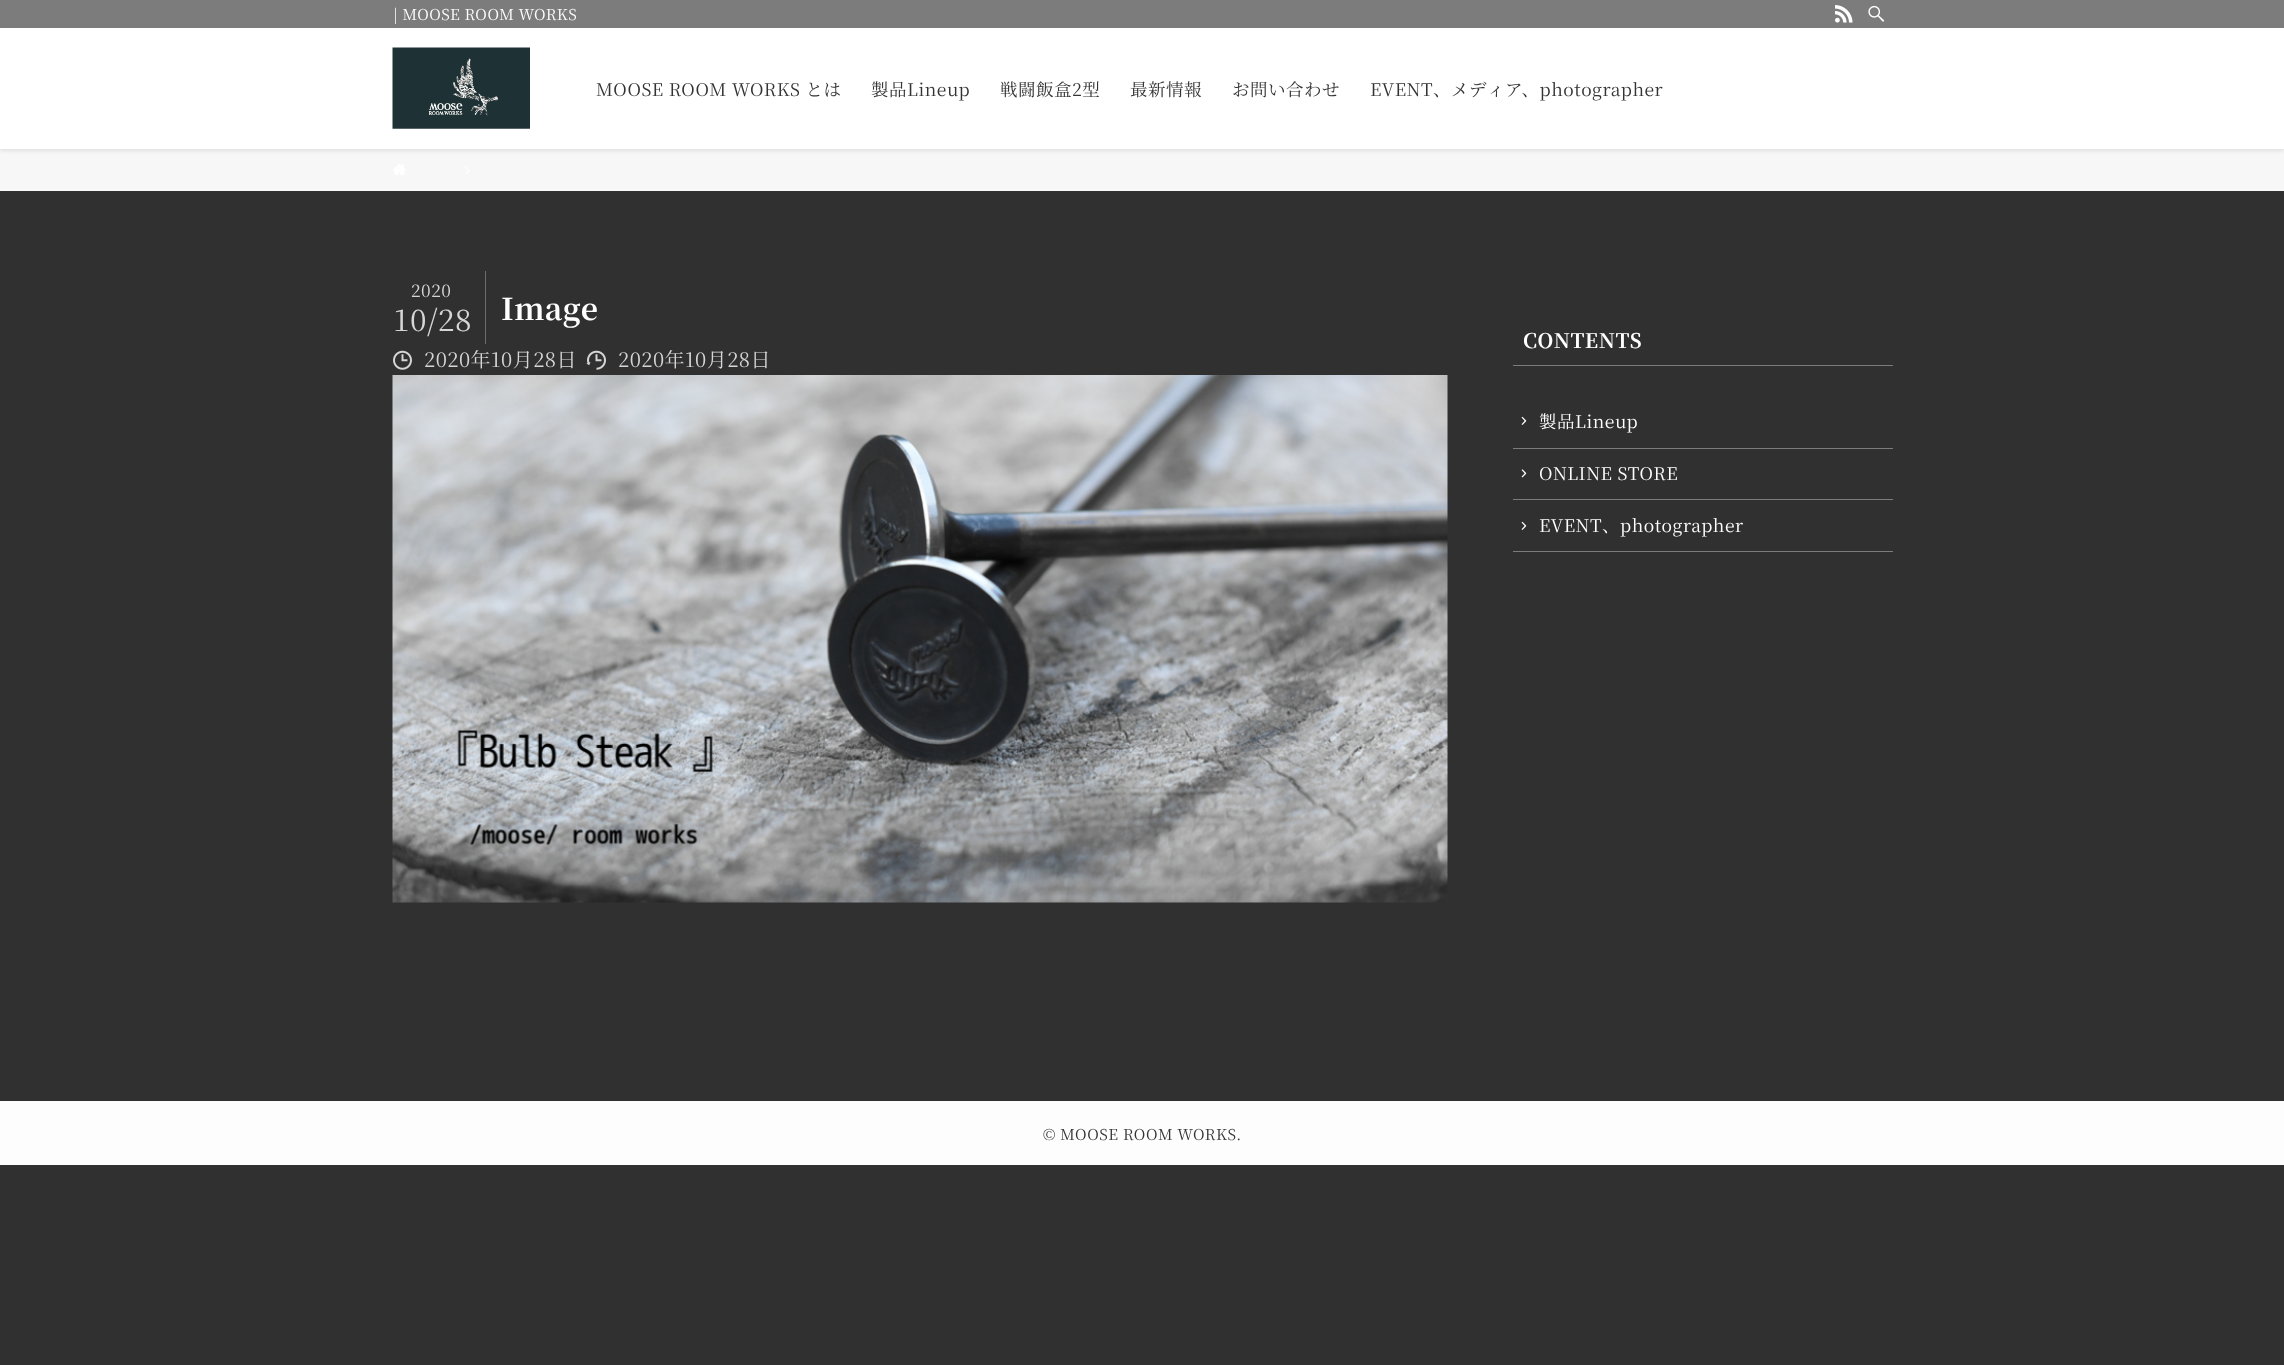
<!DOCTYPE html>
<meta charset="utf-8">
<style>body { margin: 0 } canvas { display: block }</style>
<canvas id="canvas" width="2284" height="1365"></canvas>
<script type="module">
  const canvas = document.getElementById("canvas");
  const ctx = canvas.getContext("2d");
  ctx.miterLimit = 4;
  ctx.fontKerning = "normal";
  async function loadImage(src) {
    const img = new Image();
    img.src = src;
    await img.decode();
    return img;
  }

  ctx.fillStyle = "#303030";
  ctx.fillRect(0, 0, 2284, 1365);
  ctx.fillStyle = "#f7f7f7";
  ctx.fillRect(0, 149, 2284, 42);
  ctx.fillStyle = "rgba(0, 0, 0, 0.12)";
  ctx.filter = "blur(2.5px)";
  ctx.beginPath();
  ctx.rect(0, 1, 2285, 149);
  ctx.fill();
  ctx.filter = "none";
  ctx.fillStyle = "#ffffff";
  ctx.fillRect(0, 28, 2284, 121);
  ctx.fillStyle = "#7c7c7c";
  ctx.fillRect(0, 0, 2284, 28);
  ctx.letterSpacing = "0.4px";
  ctx.font = "15px Noto Serif JP";
  ctx.fillStyle = "#ffffff";
  ctx.fillText("| MOOSE ROOM WORKS", 393, 20);
  ctx.drawImage(await loadImage("img1.png"), 1835, 5, 18, 18);
  ctx.drawImage(await loadImage("img2.png"), 1868, 5, 17, 17);
  ctx.drawImage(await loadImage("img3.png"), 392, 47, 138, 82);
  ctx.letterSpacing = "0.5px";
  ctx.font = "17.5px Noto Serif JP";
  ctx.fillStyle = "#333333";
  ctx.fillText("MOOSE ROOM WORKS とは", 596, 96);
  ctx.fillText("製品Lineup", 871, 96);
  ctx.fillText("戦闘飯盒2型", 1000, 96);
  ctx.fillText("最新情報", 1130, 96);
  ctx.fillText("お問い合わせ", 1232, 96);
  ctx.fillText("EVENT、メディア、photographer", 1370, 96);
  ctx.drawImage(await loadImage("img4.png"), 393, 164, 13, 11);
  ctx.fillStyle = "#fdfdfd";
  ctx.beginPath();
  ctx.moveTo(465.5, 166);
  ctx.lineTo(470, 170.5);
  ctx.lineTo(469, 171.5);
  ctx.lineTo(464.5, 167);
  ctx.closePath();
  ctx.fill();
  ctx.beginPath();
  ctx.moveTo(469, 169.5);
  ctx.lineTo(470, 170.5);
  ctx.lineTo(465.5, 175);
  ctx.lineTo(464.5, 174);
  ctx.closePath();
  ctx.fill();
  ctx.fillStyle = "#6d6d6d";
  ctx.fillRect(485, 271, 1, 73);
  ctx.fillStyle = "#d6d6d6";
  ctx.fillText("2020", 411, 297);
  ctx.font = "30px Noto Serif JP";
  ctx.fillText("10/28", 393, 331);
  ctx.font = "bold 30px Noto Serif JP";
  ctx.fillStyle = "#ffffff";
  ctx.fillText("Image", 501, 320);
  ctx.drawImage(await loadImage("img5.png"), 393, 350, 19, 20);
  ctx.font = "20px Noto Serif JP";
  ctx.fillStyle = "#d6d6d6";
  ctx.fillText("2020年10月28日", 424, 367);
  ctx.drawImage(await loadImage("img6.png"), 586, 350, 20, 20);
  ctx.fillText("2020年10月28日", 618, 367);
  ctx.drawImage(await loadImage("img7.png"), 392, 375, 1056, 528);
  ctx.font = "bold 20px Noto Serif JP";
  ctx.fillStyle = "#ffffff";
  ctx.fillText("CONTENTS", 1523, 348);
  ctx.fillStyle = "#7c7c7c";
  ctx.fillRect(1513, 365, 380, 1);
  ctx.fillRect(1513, 448, 380, 1);
  ctx.drawImage(await loadImage("img8.png"), 1521, 416, 6, 9);
  ctx.font = "17.5px Noto Serif JP";
  ctx.fillStyle = "#ffffff";
  ctx.fillText("製品Lineup", 1539, 428);
  ctx.fillStyle = "#7c7c7c";
  ctx.fillRect(1513, 499, 380, 1);
  ctx.drawImage(await loadImage("img9.png"), 1521, 469, 6, 9);
  ctx.fillStyle = "#ffffff";
  ctx.fillText("ONLINE STORE", 1539, 480);
  ctx.fillStyle = "#7c7c7c";
  ctx.fillRect(1513, 551, 380, 1);
  ctx.drawImage(await loadImage("img8.png"), 1521, 521, 6, 9);
  ctx.fillStyle = "#ffffff";
  ctx.fillText("EVENT、photographer", 1539, 532);
  ctx.fillStyle = "#fdfdfd";
  ctx.fillRect(0, 1101, 2284, 64);
  ctx.font = "15px Noto Serif JP";
  ctx.fillStyle = "#333333";
  ctx.fillText("© MOOSE ROOM WORKS.", 1043, 1140);
</script>
